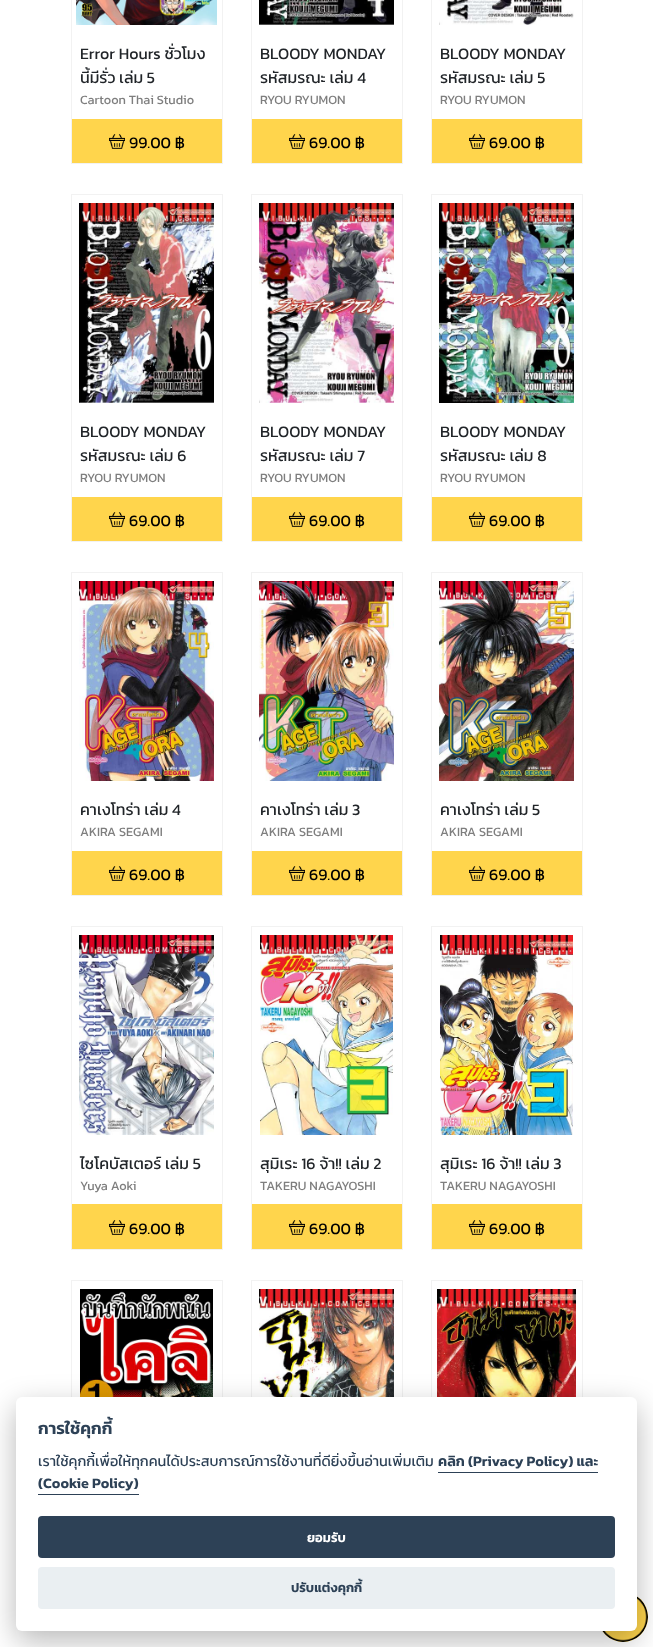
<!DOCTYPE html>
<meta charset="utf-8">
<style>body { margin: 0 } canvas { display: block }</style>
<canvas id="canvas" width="653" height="1647"></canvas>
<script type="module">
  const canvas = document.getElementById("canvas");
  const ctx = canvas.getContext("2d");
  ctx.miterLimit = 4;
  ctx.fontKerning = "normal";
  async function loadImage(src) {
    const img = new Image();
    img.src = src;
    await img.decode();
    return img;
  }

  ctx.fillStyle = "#ffffff";
  ctx.fillRect(0, 0, 653, 1647);
  ctx.fillStyle = "#ffd54c";
  ctx.fillRect(72, 119, 150, 44);
  ctx.drawImage(await loadImage("img2.png"), 109, 134, 16, 15);
  ctx.strokeStyle = "#f2f2f2";
  ctx.strokeRect(71.5, -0.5, 151, 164);
  ctx.drawImage(await loadImage("img1.png"), 76, 0, 141, 25);
  ctx.font = "16px Kanit";
  ctx.fillStyle = "#212529";
  ctx.fillText("Error Hours ชั่วโมง", 80, 59);
  ctx.save();
  ctx.beginPath();
  ctx.rect(80, 41, 134, 48);
  ctx.clip();
  ctx.fillText("นี้มีรั่ว เล่ม 5", 80, 83);
  ctx.restore();
  ctx.font = "12.75px Kanit";
  ctx.fillStyle = "#7e7e7e";
  ctx.fillText("Cartoon Thai Studio", 80, 104);
  ctx.font = "16px Kanit";
  ctx.fillStyle = "#000000";
  ctx.fillText("99.00 ฿", 129, 148);
  ctx.fillStyle = "#ffd54c";
  ctx.fillRect(252, 119, 150, 44);
  ctx.drawImage(await loadImage("img2.png"), 289, 134, 16, 15);
  ctx.strokeRect(251.5, -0.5, 151, 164);
  ctx.drawImage(await loadImage("img3.png"), 259, 0, 135, 25);
  ctx.fillStyle = "#212529";
  ctx.fillText("BLOODY MONDAY", 260, 59);
  ctx.fillText("รหัสมรณะ เล่ม 4", 260, 83);
  ctx.font = "12.75px Kanit";
  ctx.fillStyle = "#7e7e7e";
  ctx.fillText("RYOU RYUMON", 260, 104);
  ctx.font = "16px Kanit";
  ctx.fillStyle = "#000000";
  ctx.fillText("69.00 ฿", 309, 148);
  ctx.fillStyle = "#ffd54c";
  ctx.fillRect(432, 119, 150, 44);
  ctx.drawImage(await loadImage("img2.png"), 469, 134, 16, 15);
  ctx.strokeRect(431.5, -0.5, 151, 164);
  ctx.drawImage(await loadImage("img4.png"), 439, 0, 135, 25);
  ctx.fillStyle = "#212529";
  ctx.fillText("BLOODY MONDAY", 440, 59);
  ctx.fillText("รหัสมรณะ เล่ม 5", 440, 83);
  ctx.font = "12.75px Kanit";
  ctx.fillStyle = "#7e7e7e";
  ctx.fillText("RYOU RYUMON", 440, 104);
  ctx.font = "16px Kanit";
  ctx.fillStyle = "#000000";
  ctx.fillText("69.00 ฿", 489, 148);
  ctx.fillStyle = "#ffd54c";
  ctx.fillRect(72, 497, 150, 44);
  ctx.drawImage(await loadImage("img2.png"), 109, 512, 16, 15);
  ctx.strokeRect(71.5, 194.5, 151, 347);
  ctx.drawImage(await loadImage("img5.png"), 79, 203, 135, 200);
  ctx.fillStyle = "#212529";
  ctx.fillText("BLOODY MONDAY", 80, 437);
  ctx.fillText("รหัสมรณะ เล่ม 6", 80, 461);
  ctx.font = "12.75px Kanit";
  ctx.fillStyle = "#7e7e7e";
  ctx.fillText("RYOU RYUMON", 80, 482);
  ctx.font = "16px Kanit";
  ctx.fillStyle = "#000000";
  ctx.fillText("69.00 ฿", 129, 526);
  ctx.fillStyle = "#ffd54c";
  ctx.fillRect(252, 497, 150, 44);
  ctx.drawImage(await loadImage("img2.png"), 289, 512, 16, 15);
  ctx.strokeRect(251.5, 194.5, 151, 347);
  ctx.drawImage(await loadImage("img6.png"), 259, 203, 135, 200);
  ctx.fillStyle = "#212529";
  ctx.fillText("BLOODY MONDAY", 260, 437);
  ctx.fillText("รหัสมรณะ เล่ม 7", 260, 461);
  ctx.font = "12.75px Kanit";
  ctx.fillStyle = "#7e7e7e";
  ctx.fillText("RYOU RYUMON", 260, 482);
  ctx.font = "16px Kanit";
  ctx.fillStyle = "#000000";
  ctx.fillText("69.00 ฿", 309, 526);
  ctx.fillStyle = "#ffd54c";
  ctx.fillRect(432, 497, 150, 44);
  ctx.drawImage(await loadImage("img2.png"), 469, 512, 16, 15);
  ctx.strokeRect(431.5, 194.5, 151, 347);
  ctx.drawImage(await loadImage("img7.png"), 439, 203, 135, 200);
  ctx.fillStyle = "#212529";
  ctx.fillText("BLOODY MONDAY", 440, 437);
  ctx.fillText("รหัสมรณะ เล่ม 8", 440, 461);
  ctx.font = "12.75px Kanit";
  ctx.fillStyle = "#7e7e7e";
  ctx.fillText("RYOU RYUMON", 440, 482);
  ctx.font = "16px Kanit";
  ctx.fillStyle = "#000000";
  ctx.fillText("69.00 ฿", 489, 526);
  ctx.fillStyle = "#ffd54c";
  ctx.fillRect(72, 851, 150, 44);
  ctx.drawImage(await loadImage("img9.png"), 109, 866, 16, 15);
  ctx.strokeRect(71.5, 572.5, 151, 323);
  ctx.drawImage(await loadImage("img8.png"), 79, 581, 135, 200);
  ctx.fillStyle = "#212529";
  ctx.fillText("คาเงโทร่า เล่ม 4", 80, 815);
  ctx.font = "12.75px Kanit";
  ctx.fillStyle = "#7e7e7e";
  ctx.fillText("AKIRA SEGAMI", 80, 836);
  ctx.font = "16px Kanit";
  ctx.fillStyle = "#000000";
  ctx.fillText("69.00 ฿", 129, 880);
  ctx.fillStyle = "#ffd54c";
  ctx.fillRect(252, 851, 150, 44);
  ctx.drawImage(await loadImage("img9.png"), 289, 866, 16, 15);
  ctx.strokeRect(251.5, 572.5, 151, 323);
  ctx.drawImage(await loadImage("img10.png"), 259, 581, 135, 200);
  ctx.fillStyle = "#212529";
  ctx.fillText("คาเงโทร่า เล่ม 3", 260, 815);
  ctx.font = "12.75px Kanit";
  ctx.fillStyle = "#7e7e7e";
  ctx.fillText("AKIRA SEGAMI", 260, 836);
  ctx.font = "16px Kanit";
  ctx.fillStyle = "#000000";
  ctx.fillText("69.00 ฿", 309, 880);
  ctx.fillStyle = "#ffd54c";
  ctx.fillRect(432, 851, 150, 44);
  ctx.drawImage(await loadImage("img9.png"), 469, 866, 16, 15);
  ctx.strokeRect(431.5, 572.5, 151, 323);
  ctx.drawImage(await loadImage("img11.png"), 439, 581, 135, 200);
  ctx.fillStyle = "#212529";
  ctx.fillText("คาเงโทร่า เล่ม 5", 440, 815);
  ctx.font = "12.75px Kanit";
  ctx.fillStyle = "#7e7e7e";
  ctx.fillText("AKIRA SEGAMI", 440, 836);
  ctx.font = "16px Kanit";
  ctx.fillStyle = "#000000";
  ctx.fillText("69.00 ฿", 489, 880);
  ctx.fillStyle = "#ffd54c";
  ctx.fillRect(72, 1204, 150, 45);
  ctx.drawImage(await loadImage("img2.png"), 109, 1220, 16, 15);
  ctx.strokeRect(71.5, 926.5, 151, 323);
  ctx.drawImage(await loadImage("img12.png"), 79, 935, 135, 200);
  ctx.fillStyle = "#212529";
  ctx.fillText("ไซโคบัสเตอร์ เล่ม 5", 80, 1169);
  ctx.font = "12.75px Kanit";
  ctx.fillStyle = "#7e7e7e";
  ctx.fillText("Yuya Aoki", 80, 1190);
  ctx.font = "16px Kanit";
  ctx.fillStyle = "#000000";
  ctx.fillText("69.00 ฿", 129, 1234);
  ctx.fillStyle = "#ffd54c";
  ctx.fillRect(252, 1204, 150, 45);
  ctx.drawImage(await loadImage("img2.png"), 289, 1220, 16, 15);
  ctx.strokeRect(251.5, 926.5, 151, 323);
  ctx.drawImage(await loadImage("img13.png"), 260, 935, 133, 200);
  ctx.save();
  ctx.beginPath();
  ctx.rect(260, 1151, 134, 24);
  ctx.clip();
  ctx.fillStyle = "#212529";
  ctx.fillText("สุมิเระ 16 จ้า!! เล่ม 2", 260, 1169);
  ctx.restore();
  ctx.font = "12.75px Kanit";
  ctx.fillStyle = "#7e7e7e";
  ctx.fillText("TAKERU NAGAYOSHI", 260, 1190);
  ctx.font = "16px Kanit";
  ctx.fillStyle = "#000000";
  ctx.fillText("69.00 ฿", 309, 1234);
  ctx.fillStyle = "#ffd54c";
  ctx.fillRect(432, 1204, 150, 45);
  ctx.drawImage(await loadImage("img2.png"), 469, 1220, 16, 15);
  ctx.strokeRect(431.5, 926.5, 151, 323);
  ctx.drawImage(await loadImage("img14.png"), 440, 935, 133, 200);
  ctx.save();
  ctx.beginPath();
  ctx.rect(440, 1151, 134, 24);
  ctx.clip();
  ctx.fillStyle = "#212529";
  ctx.fillText("สุมิเระ 16 จ้า!! เล่ม 3", 440, 1169);
  ctx.restore();
  ctx.font = "12.75px Kanit";
  ctx.fillStyle = "#7e7e7e";
  ctx.fillText("TAKERU NAGAYOSHI", 440, 1190);
  ctx.font = "16px Kanit";
  ctx.fillStyle = "#000000";
  ctx.fillText("69.00 ฿", 489, 1234);
  ctx.strokeRect(71.5, 1280.5, 151, 347);
  ctx.drawImage(await loadImage("img15.png"), 80, 1289, 133, 108);
  ctx.strokeRect(251.5, 1280.5, 151, 347);
  ctx.drawImage(await loadImage("img16.png"), 259, 1289, 135, 108);
  ctx.strokeRect(431.5, 1280.5, 151, 347);
  ctx.drawImage(await loadImage("img17.png"), 437, 1289, 139, 108);
  ctx.fillStyle = "#ffd54c";
  ctx.beginPath();
  ctx.arc(623, 1617, 25, 0, Math.PI * 2);
  ctx.fill();
  ctx.drawImage(await loadImage("img18.png"), 602, 1596, 46, 46);
  ctx.fillStyle = "rgba(2, 2, 3, 0.28)";
  ctx.filter = "blur(15px)";
  ctx.beginPath();
  ctx.roundRect(16, 1407, 621, 234, 6);
  ctx.fill();
  ctx.filter = "none";
  ctx.fillStyle = "#ffffff";
  ctx.beginPath();
  ctx.roundRect(16, 1397, 621, 234, 6);
  ctx.fill();
  ctx.font = "600 17px Kanit";
  ctx.fillStyle = "#2d4156";
  ctx.fillText("การใช้คุกกี้", 38, 1434);
  ctx.font = "14.4px Kanit";
  ctx.fillText("เราใช้คุกกี้เพื่อให้ทุกคนได้ประสบการณ์การใช้งานที่ดียิ่งขึ้นอ่านเพิ่มเติม", 38, 1466);
  ctx.font = "600 14.4px Kanit";
  ctx.fillText("คลิก (Privacy Policy) และ", 438, 1466);
  ctx.fillRect(438, 1472, 160, 1);
  ctx.fillText("(Cookie Policy)", 38, 1488);
  ctx.fillRect(38, 1494, 101, 1);
  ctx.beginPath();
  ctx.roundRect(38, 1516, 577, 42, 4);
  ctx.fill();
  ctx.font = "600 13px Kanit";
  ctx.fillStyle = "#ffffff";
  ctx.fillText("ยอมรับ", 307, 1542);
  ctx.fillStyle = "#eaeff2";
  ctx.beginPath();
  ctx.roundRect(38, 1567, 577, 42, 4);
  ctx.fill();
  ctx.fillStyle = "#2d4156";
  ctx.fillText("ปรับแต่งคุกกี้", 291, 1592);
</script>
